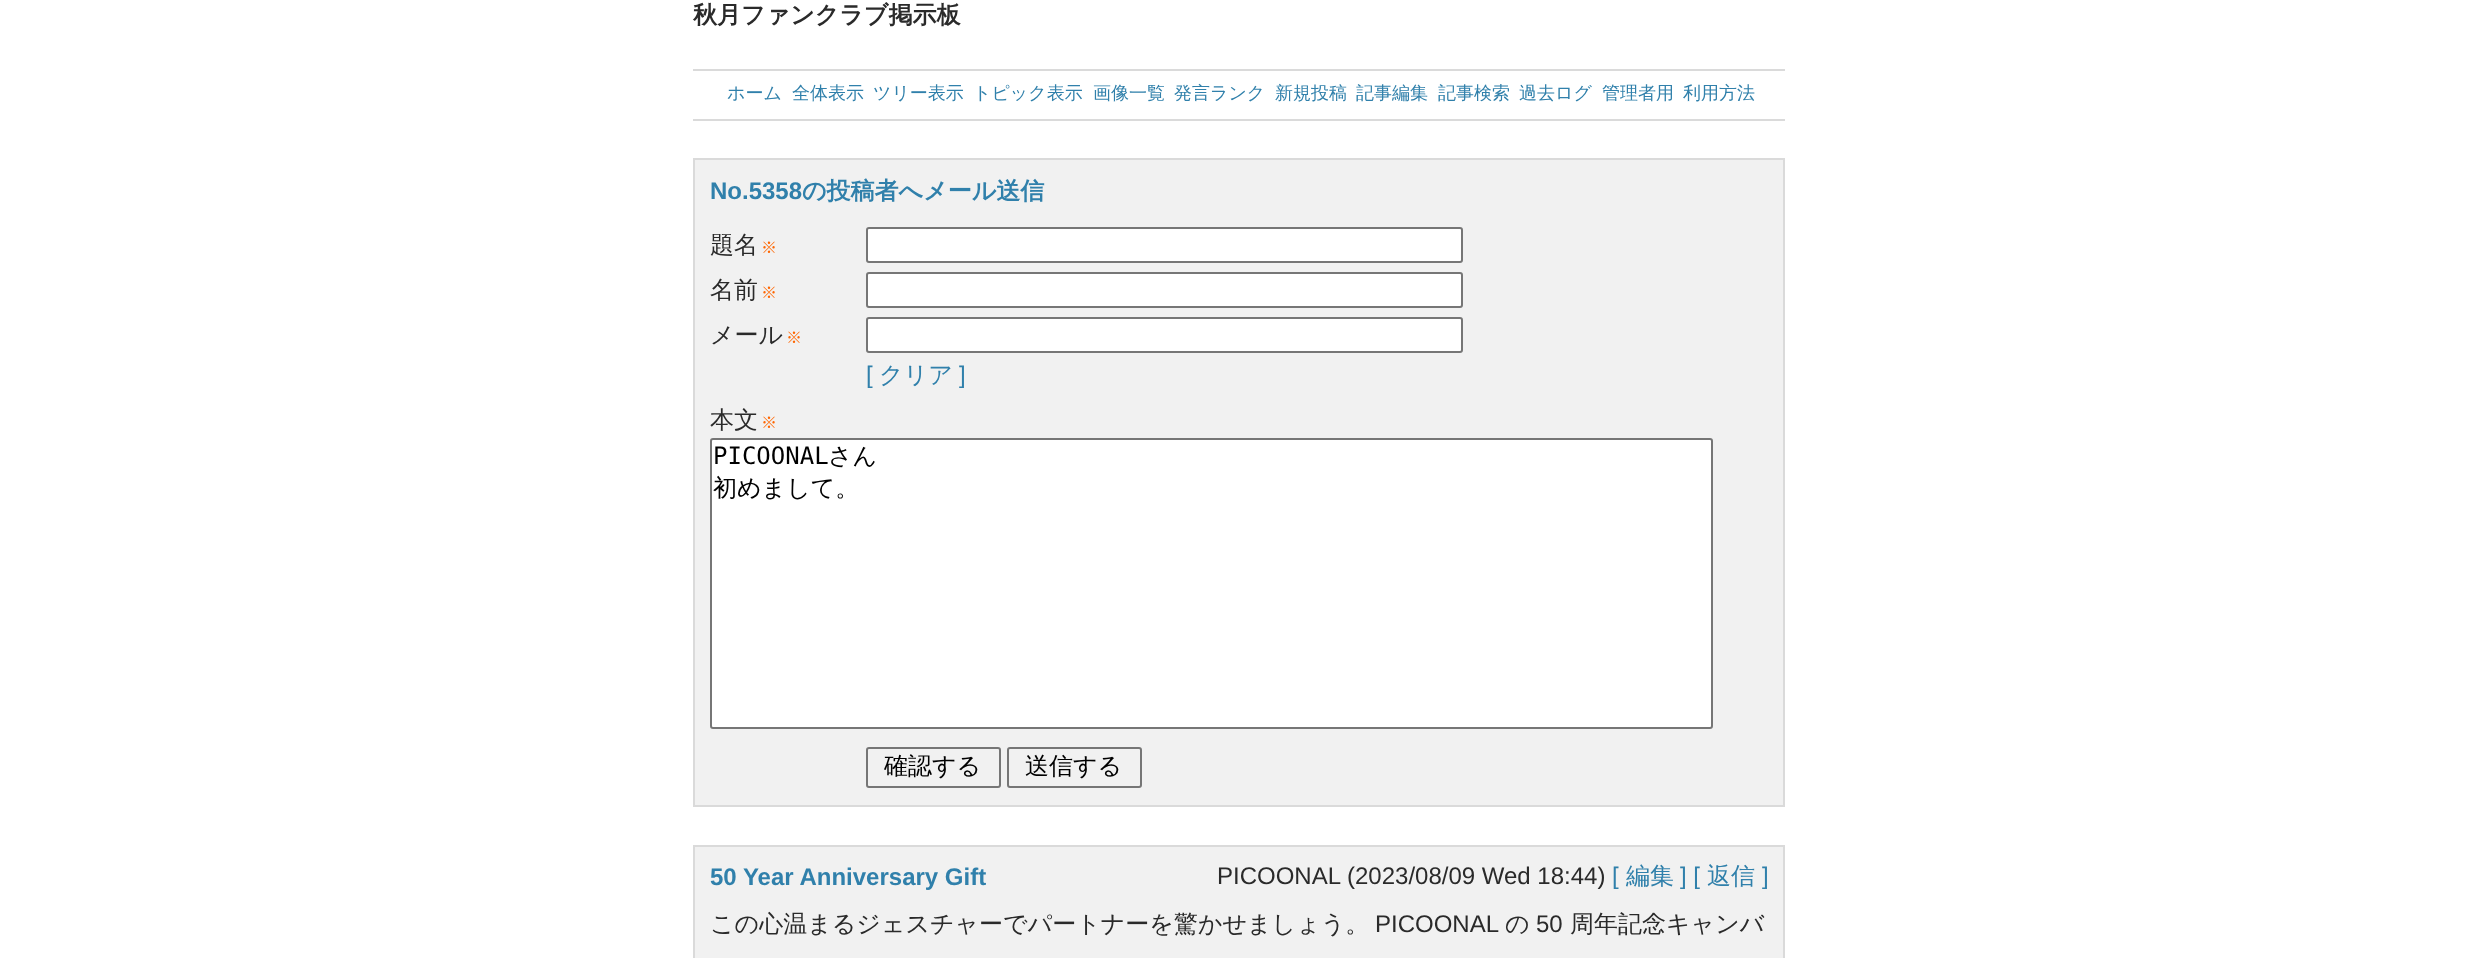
<!DOCTYPE html>
<meta charset="utf-8">
<style>body { margin: 0 } canvas { display: block }</style>
<canvas id="canvas" width="2477" height="958"></canvas>
<script type="module">
  const canvas = document.getElementById("canvas");
  const ctx = canvas.getContext("2d");
  ctx.miterLimit = 4;
  ctx.fontKerning = "normal";

  ctx.fillStyle = "#ffffff";
  ctx.fillRect(0, 0, 2477, 958);
  ctx.font = "bold 24px WenQuanYi Zen Hei";
  ctx.fillStyle = "#2a2a2a";
  ctx.fillText("秋月ファンクラブ掲示板", 693, 23);
  ctx.fillStyle = "#dadada";
  ctx.fillRect(693, 69, 1092, 2);
  ctx.fillRect(693, 119, 1092, 2);
  ctx.font = "500 18px WenQuanYi Zen Hei";
  ctx.fillStyle = "#3080ab";
  ctx.fillText("ホーム", 727, 99);
  ctx.fillText("全体表示", 792, 99);
  ctx.fillText("ツリー表示", 873, 99);
  ctx.fillText("トピック表示", 973, 99);
  ctx.fillText("画像一覧", 1093, 99);
  ctx.fillText("発言ランク", 1174, 99);
  ctx.fillText("新規投稿", 1275, 99);
  ctx.fillText("記事編集", 1356, 99);
  ctx.fillText("記事検索", 1438, 99);
  ctx.fillText("過去ログ", 1519, 99);
  ctx.fillText("管理者用", 1602, 99);
  ctx.fillText("利用方法", 1683, 99);
  ctx.fillStyle = "#f1f1f1";
  ctx.beginPath();
  ctx.rect(694, 159, 1090, 647);
  ctx.fill();
  ctx.strokeStyle = "#dadada";
  ctx.lineWidth = 2;
  ctx.stroke();
  ctx.font = "bold 24px Liberation Sans";
  ctx.fillStyle = "#3080ab";
  ctx.fillText("No.5358", 710, 199);
  ctx.font = "bold 24px WenQuanYi Zen Hei";
  ctx.fillText("の投稿者へメール送信", 802, 199);
  ctx.font = "500 24px WenQuanYi Zen Hei";
  ctx.fillStyle = "#2a2a2a";
  ctx.fillText("題名", 710, 253);
  ctx.font = "500 16px WenQuanYi Zen Hei";
  ctx.fillStyle = "#ff6600";
  ctx.fillText("※", 761, 253);
  ctx.fillStyle = "#ffffff";
  ctx.beginPath();
  ctx.roundRect(867, 228, 595, 34, 2);
  ctx.fill();
  ctx.strokeStyle = "#767676";
  ctx.stroke();
  ctx.font = "500 24px WenQuanYi Zen Hei";
  ctx.fillStyle = "#2a2a2a";
  ctx.fillText("名前", 710, 298);
  ctx.font = "500 16px WenQuanYi Zen Hei";
  ctx.fillStyle = "#ff6600";
  ctx.fillText("※", 761, 298);
  ctx.fillStyle = "#ffffff";
  ctx.beginPath();
  ctx.roundRect(867, 273, 595, 34, 2);
  ctx.fill();
  ctx.stroke();
  ctx.font = "500 24px WenQuanYi Zen Hei";
  ctx.fillStyle = "#2a2a2a";
  ctx.fillText("メール", 710, 343);
  ctx.font = "500 16px WenQuanYi Zen Hei";
  ctx.fillStyle = "#ff6600";
  ctx.fillText("※", 786, 343);
  ctx.fillStyle = "#ffffff";
  ctx.beginPath();
  ctx.roundRect(867, 318, 595, 34, 2);
  ctx.fill();
  ctx.stroke();
  ctx.font = "24px Liberation Sans";
  ctx.fillStyle = "#3080ab";
  ctx.fillText("[", 866, 383);
  ctx.font = "500 24px WenQuanYi Zen Hei";
  ctx.fillText("クリア", 879, 383);
  ctx.font = "24px Liberation Sans";
  ctx.fillText("]", 959, 383);
  ctx.font = "500 24px WenQuanYi Zen Hei";
  ctx.fillStyle = "#2a2a2a";
  ctx.fillText("本文", 710, 428);
  ctx.font = "500 16px WenQuanYi Zen Hei";
  ctx.fillStyle = "#ff6600";
  ctx.fillText("※", 761, 428);
  ctx.fillStyle = "#ffffff";
  ctx.beginPath();
  ctx.roundRect(711, 439, 1001, 289, 2);
  ctx.fill();
  ctx.stroke();
  ctx.font = "24px DejaVu Sans Mono";
  ctx.fillStyle = "#000000";
  ctx.fillText("PICOONAL", 713, 464);
  ctx.font = "500 24px WenQuanYi Zen Hei";
  ctx.fillText("さん", 828, 464);
  ctx.fillText("初めまして。", 713, 496);
  ctx.beginPath();
  ctx.roundRect(867, 748, 133, 39, 2);
  ctx.stroke();
  ctx.fillText("確認する", 884, 774);
  ctx.beginPath();
  ctx.roundRect(1008, 748, 133, 39, 2);
  ctx.stroke();
  ctx.fillText("送信する", 1025, 774);
  ctx.fillStyle = "#f1f1f1";
  ctx.beginPath();
  ctx.rect(694, 846, 1090, 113);
  ctx.fill();
  ctx.strokeStyle = "#dadada";
  ctx.stroke();
  ctx.font = "bold 24px Liberation Sans";
  ctx.fillStyle = "#3080ab";
  ctx.fillText("50 Year Anniversary Gift", 710, 885);
  ctx.font = "24px Liberation Sans";
  ctx.fillStyle = "#2a2a2a";
  ctx.fillText("PICOONAL", 1217, 884);
  ctx.fillText("(2023/08/09 Wed 18:44)", 1347, 884);
  ctx.fillStyle = "#3080ab";
  ctx.fillText("[", 1612, 884);
  ctx.font = "500 24px WenQuanYi Zen Hei";
  ctx.fillText("編集", 1626, 884);
  ctx.font = "24px Liberation Sans";
  ctx.fillText("] [", 1680, 884);
  ctx.font = "500 24px WenQuanYi Zen Hei";
  ctx.fillText("返信", 1707, 884);
  ctx.font = "24px Liberation Sans";
  ctx.fillText("]", 1762, 884);
  ctx.font = "500 24px WenQuanYi Zen Hei";
  ctx.fillStyle = "#2a2a2a";
  ctx.fillText("この心温まるジェスチャーでパートナーを驚かせましょう。", 710, 932);
  ctx.font = "24px Liberation Sans";
  ctx.fillText("PICOONAL", 1375, 932);
  ctx.font = "500 24px WenQuanYi Zen Hei";
  ctx.fillText("の", 1505, 932);
  ctx.font = "24px Liberation Sans";
  ctx.fillText("50", 1536, 932);
  ctx.font = "500 24px WenQuanYi Zen Hei";
  ctx.fillText("周年記念キャンバ", 1570, 932);
</script>
